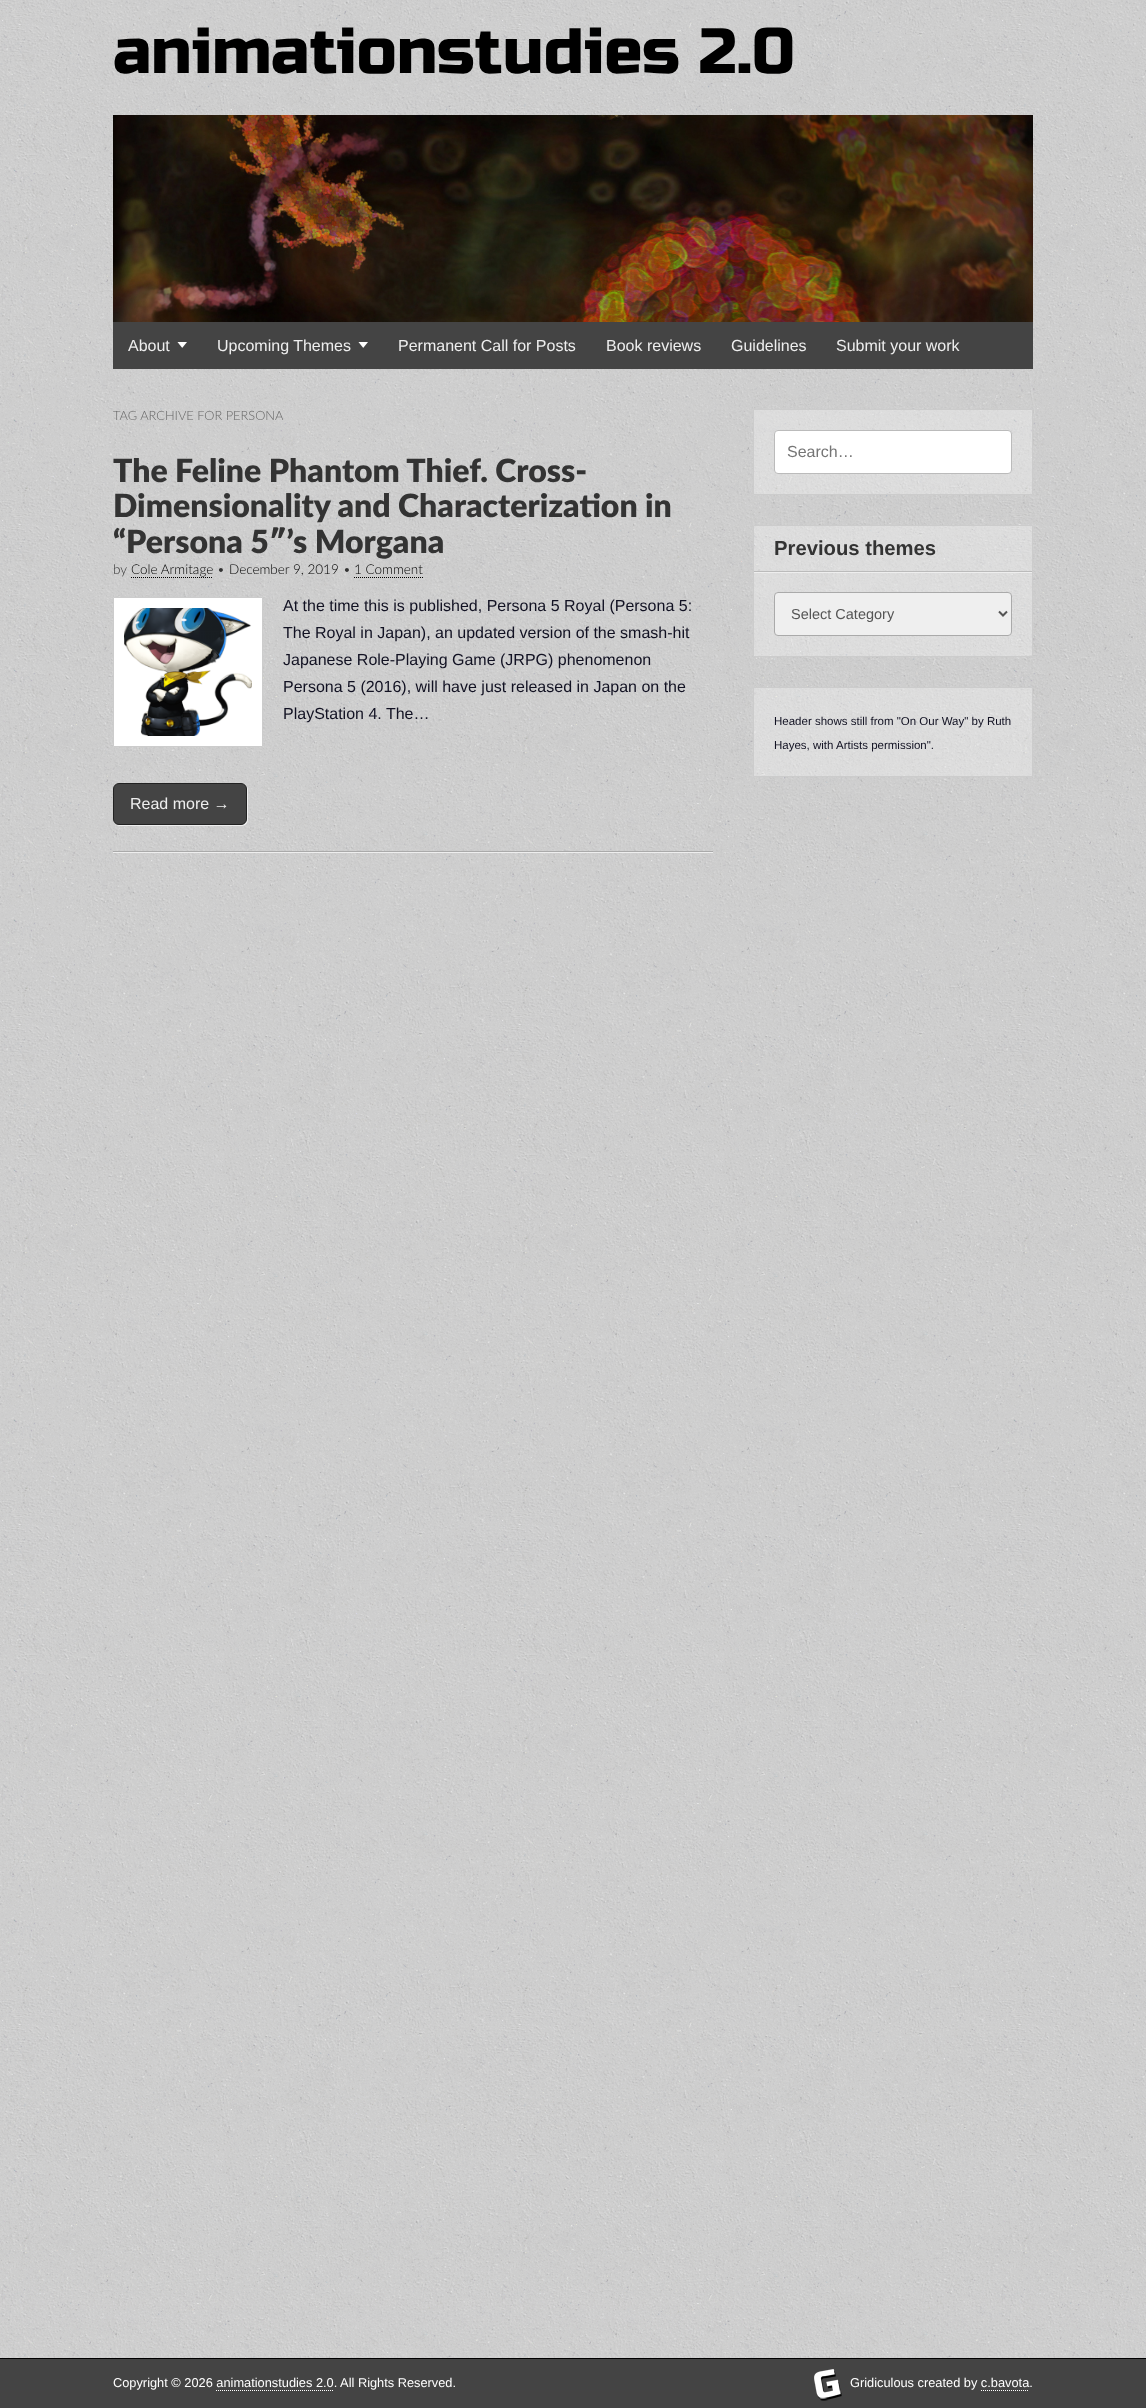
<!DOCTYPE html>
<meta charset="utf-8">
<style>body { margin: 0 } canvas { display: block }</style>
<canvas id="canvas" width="1146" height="2408"></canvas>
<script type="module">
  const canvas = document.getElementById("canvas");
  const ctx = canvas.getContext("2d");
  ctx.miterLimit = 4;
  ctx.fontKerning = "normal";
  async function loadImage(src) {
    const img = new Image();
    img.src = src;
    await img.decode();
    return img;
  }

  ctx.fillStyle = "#ffffff";
  ctx.fillRect(0, 0, 1146, 2408);
  ctx.drawImage(await loadImage("img1.png"), 0, 0, 1146, 2358);
  ctx.font = "64px Russo One";
  ctx.fillStyle = "#000000";
  ctx.fillText("animationstudies 2.0", 113, 73);
  ctx.drawImage(await loadImage("img2.png"), 113, 115, 920, 207);
  ctx.fillStyle = "#444444";
  ctx.fillRect(113, 322, 920, 47);
  ctx.font = "16px Liberation Sans";
  ctx.fillStyle = "#eeeeee";
  ctx.fillText("About", 128, 351);
  ctx.drawImage(await loadImage("img3.png"), 177, 342, 10, 6);
  ctx.fillText("Upcoming Themes", 217, 351);
  ctx.drawImage(await loadImage("img3.png"), 358, 342, 10, 6);
  ctx.fillText("Permanent Call for Posts", 398, 351);
  ctx.fillText("Book reviews", 606, 351);
  ctx.fillText("Guidelines", 731, 351);
  ctx.fillText("Submit your work", 836, 351);
  ctx.font = "300 12.8px Lato";
  ctx.fillStyle = "#666666";
  ctx.fillText("TAG ARCHIVE FOR PERSONA", 113, 420);
  ctx.fillStyle = "#eeeeee";
  ctx.fillRect(113, 852, 600, 1);
  ctx.fillStyle = "#aaaaaa";
  ctx.fillRect(113, 851, 600, 1);
  ctx.font = "900 32px Lato";
  ctx.fillStyle = "#333333";
  ctx.fillText("The Feline Phantom Thief. Cross-", 113, 482);
  ctx.fillText("Dimensionality and Characterization in", 113, 517);
  ctx.fillText("“Persona 5″’s Morgana", 113, 553);
  ctx.font = "300 13.5px Lato";
  ctx.fillText("by", 113, 574);
  ctx.fillStyle = "#000000";
  ctx.fillText("Cole Armitage", 131, 574);
  ctx.beginPath();
  ctx.moveTo(131, 577.5);
  ctx.lineTo(213, 577.5);
  ctx.strokeStyle = "#000000";
  ctx.setLineDash([1, 1]);
  ctx.stroke();
  ctx.fillStyle = "#333333";
  ctx.fillText("•", 217, 574);
  ctx.fillStyle = "#000000";
  ctx.fillText("December 9, 2019", 229, 574);
  ctx.fillStyle = "#333333";
  ctx.fillText("•", 343, 574);
  ctx.fillStyle = "#000000";
  ctx.fillText("1 Comment", 354, 574);
  ctx.beginPath();
  ctx.moveTo(354, 577.5);
  ctx.lineTo(424, 577.5);
  ctx.stroke();
  ctx.fillStyle = "#ffffff";
  ctx.beginPath();
  ctx.rect(113.5, 597.5, 149, 149);
  ctx.fill();
  ctx.strokeStyle = "#cccccc";
  ctx.setLineDash([]);
  ctx.stroke();
  ctx.drawImage(await loadImage("img4.png"), 124, 608, 128, 128);
  ctx.font = "16px Liberation Sans";
  ctx.fillStyle = "#111122";
  ctx.fillText("At the time this is published, Persona 5 Royal (Persona 5:", 283, 611);
  ctx.fillText("The Royal in Japan), an updated version of the smash-hit", 283, 638);
  ctx.fillText("Japanese Role-Playing Game (JRPG) phenomenon", 283, 665);
  ctx.fillText("Persona 5 (2016), will have just released in Japan on the", 283, 692);
  ctx.fillText("PlayStation 4. The…", 283, 719);
  ctx.fillStyle = "#eeeeee";
  ctx.beginPath();
  ctx.moveTo(115, 824);
  ctx.bezierCurveTo(116, 825, 118, 826, 120, 826);
  ctx.lineTo(242, 826);
  ctx.bezierCurveTo(245, 826, 248, 823, 248, 820);
  ctx.lineTo(248, 790);
  ctx.bezierCurveTo(248, 788, 247, 786, 246, 785);
  ctx.bezierCurveTo(247, 786, 247, 788, 247, 789);
  ctx.lineTo(247, 819);
  ctx.bezierCurveTo(247, 822, 244, 825, 241, 825);
  ctx.lineTo(119, 825);
  ctx.bezierCurveTo(118, 825, 116, 825, 115, 824);
  ctx.closePath();
  ctx.fill();
  ctx.fillStyle = "#444444";
  ctx.beginPath();
  ctx.roundRect(113.5, 783.5, 133, 41, 5.5);
  ctx.fill();
  ctx.strokeStyle = "#222222";
  ctx.stroke();
  ctx.fillStyle = "#eeeeee";
  ctx.fillText("Read more →", 130, 809);
  ctx.fillStyle = "rgba(255, 255, 255, 0.3)";
  ctx.beginPath();
  ctx.rect(753.5, 409.5, 279, 85);
  ctx.fill();
  ctx.strokeStyle = "#cccccc";
  ctx.stroke();
  ctx.fillStyle = "#ffffff";
  ctx.beginPath();
  ctx.roundRect(774.5, 430.5, 237, 43, 3.5);
  ctx.fill();
  ctx.strokeStyle = "#bbbbbb";
  ctx.stroke();
  ctx.fillStyle = "#757575";
  ctx.fillText("Search…", 787, 457);
  ctx.fillStyle = "rgba(255, 255, 255, 0.3)";
  ctx.beginPath();
  ctx.rect(753.5, 525.5, 279, 131);
  ctx.fill();
  ctx.strokeStyle = "#cccccc";
  ctx.stroke();
  ctx.fillStyle = "#eeeeee";
  ctx.fillRect(754, 572, 278, 1);
  ctx.fillStyle = "#bbbbbb";
  ctx.fillRect(754, 571, 278, 1);
  ctx.font = "bold 20.25px Liberation Sans";
  ctx.fillStyle = "#333333";
  ctx.fillText("Previous themes", 774, 555);
  ctx.fillStyle = "#efefef";
  ctx.beginPath();
  ctx.roundRect(774.5, 592.5, 237, 43, 3.5);
  ctx.fill();
  ctx.strokeStyle = "#aaaaaa";
  ctx.stroke();
  ctx.beginPath();
  ctx.moveTo(999, 611.5);
  ctx.lineTo(1003, 615.5);
  ctx.lineTo(1007, 611.5);
  ctx.strokeStyle = "#555555";
  ctx.lineWidth = 2;
  ctx.stroke();
  ctx.font = "14.5px Liberation Sans";
  ctx.fillStyle = "#555555";
  ctx.fillText("Select Category", 791, 619);
  ctx.fillStyle = "rgba(255, 255, 255, 0.3)";
  ctx.beginPath();
  ctx.rect(753.5, 687.5, 279, 89);
  ctx.fill();
  ctx.strokeStyle = "#cccccc";
  ctx.lineWidth = 1;
  ctx.stroke();
  ctx.font = "11.5px Liberation Sans";
  ctx.fillStyle = "#111122";
  ctx.fillText("Header shows still from \"On Our Way\" by Ruth", 774, 725);
  ctx.fillText("Hayes, with Artists permission\".", 774, 749);
  ctx.fillStyle = "#444444";
  ctx.fillRect(0, 2359, 1146, 49);
  ctx.fillStyle = "#000000";
  ctx.fillRect(0, 2358, 1146, 1);
  ctx.font = "12.8px Liberation Sans";
  ctx.fillStyle = "#ffffff";
  ctx.fillText("Copyright © 2026 animationstudies 2.0. All Rights Reserved.", 113, 2387);
  ctx.beginPath();
  ctx.moveTo(216, 2390.5);
  ctx.lineTo(334, 2390.5);
  ctx.strokeStyle = "#ffffff";
  ctx.setLineDash([1, 1]);
  ctx.stroke();
  ctx.drawImage(await loadImage("img5.png"), 814, 2369, 28, 32);
  ctx.fillText("Gridiculous created by c.bavota.", 850, 2387);
  ctx.beginPath();
  ctx.moveTo(981, 2390.5);
  ctx.lineTo(1029, 2390.5);
  ctx.stroke();
</script>
